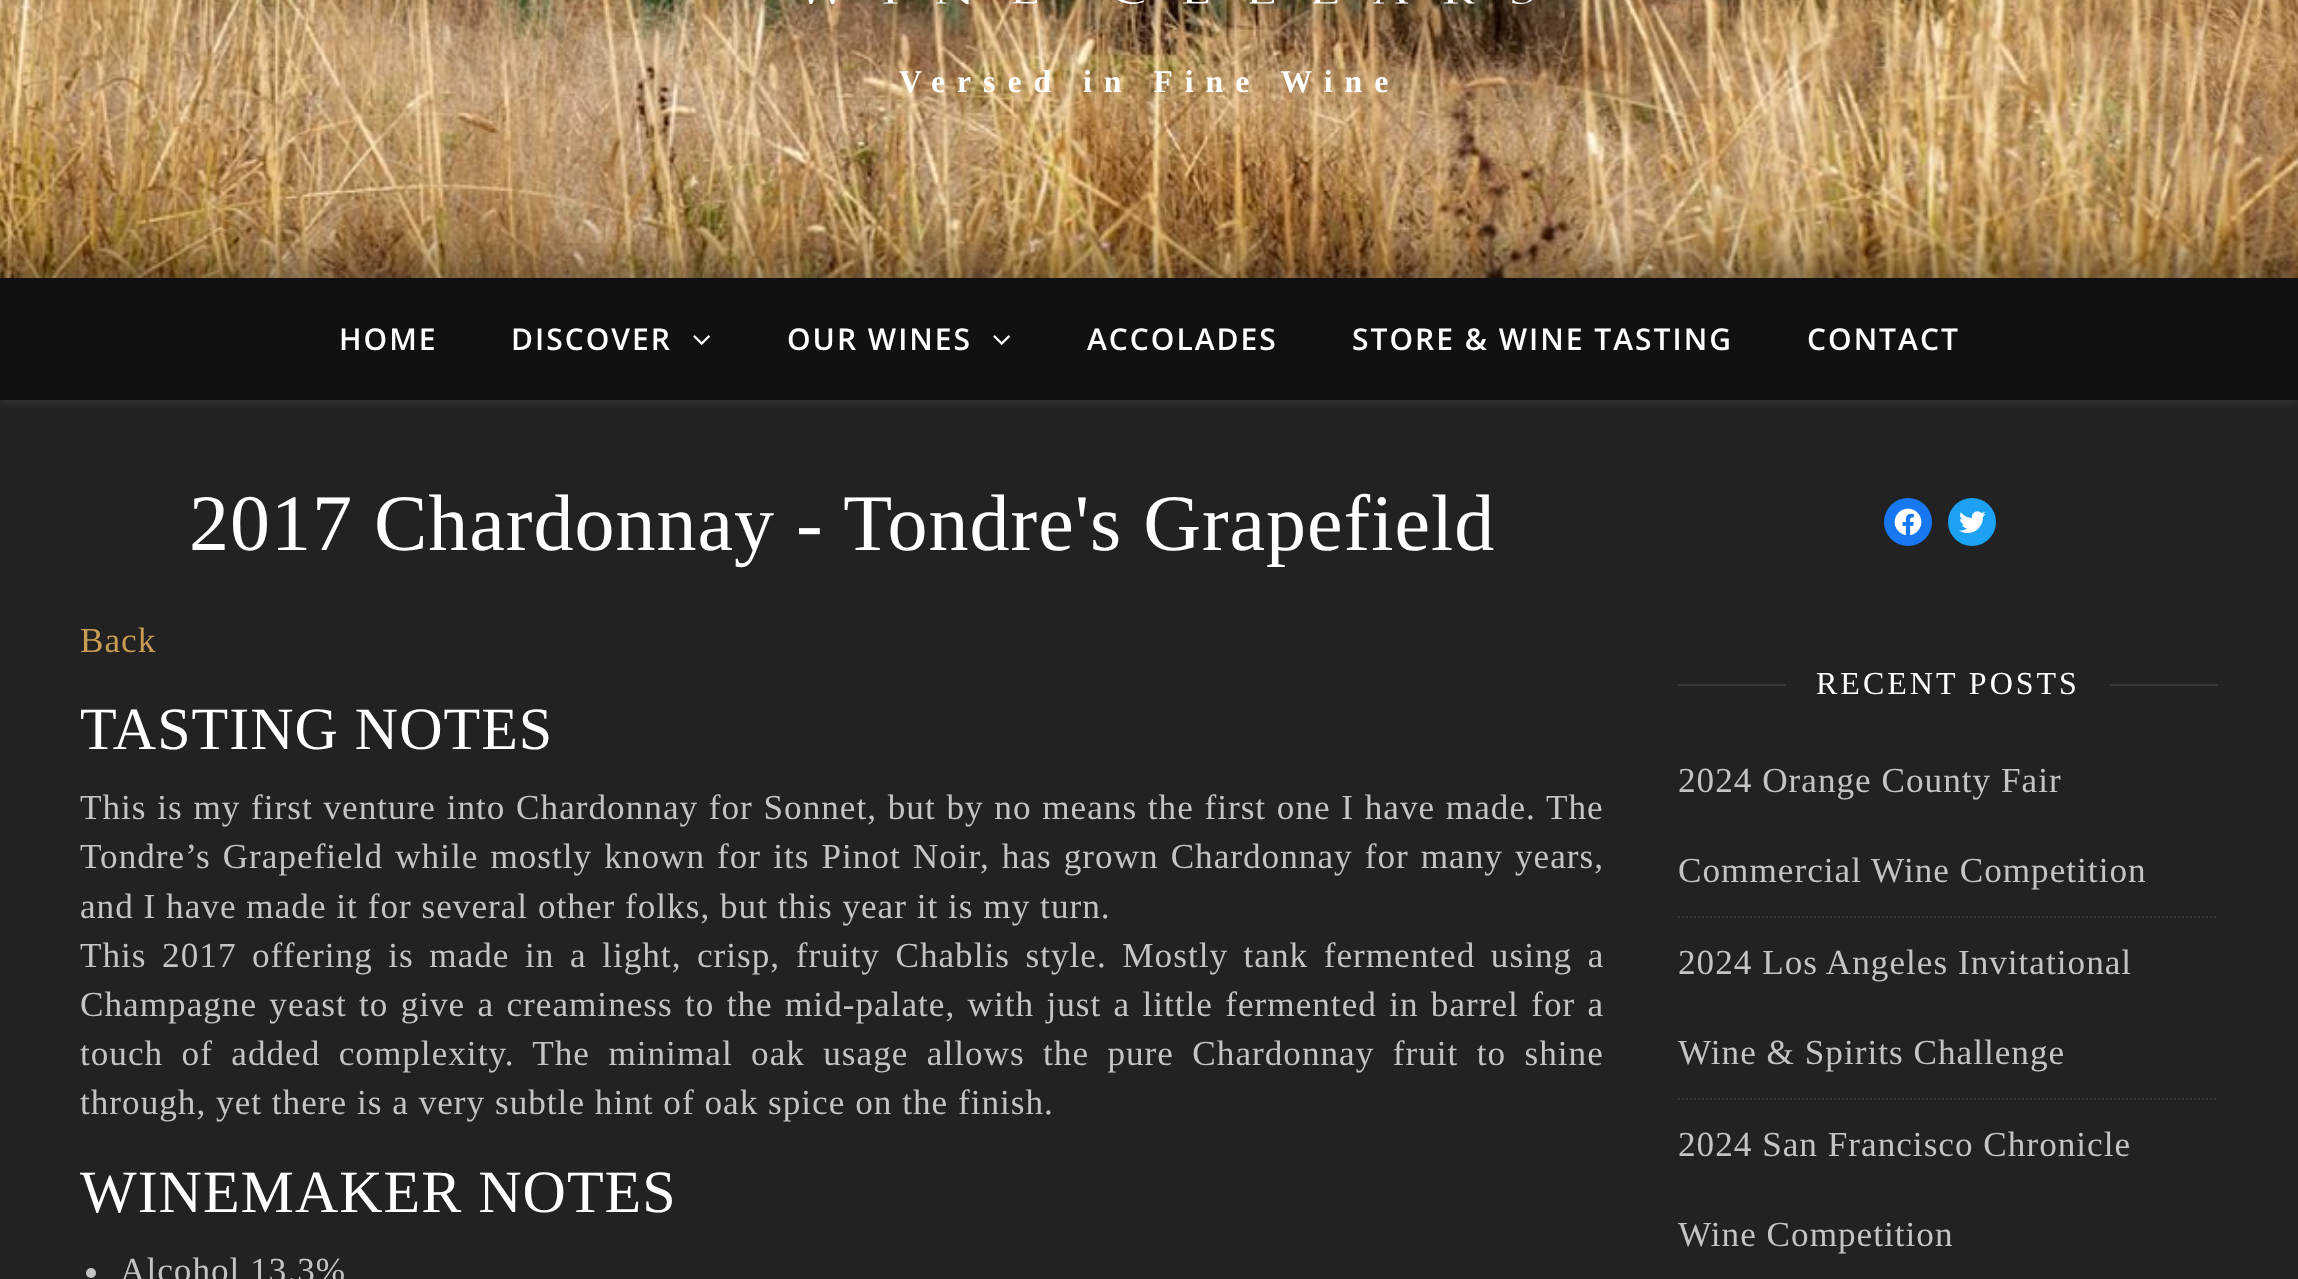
<!DOCTYPE html>
<meta charset="utf-8">
<style>body { margin: 0 } canvas { display: block }</style>
<canvas id="canvas" width="2298" height="1279"></canvas>
<script type="module">
  const canvas = document.getElementById("canvas");
  const ctx = canvas.getContext("2d");
  ctx.miterLimit = 4;
  ctx.fontKerning = "normal";
  async function loadImage(src) {
    const img = new Image();
    img.src = src;
    await img.decode();
    return img;
  }

  ctx.fillStyle = "#222222";
  ctx.fillRect(0, 0, 2298, 1279);
  ctx.drawImage(await loadImage("img1.png"), 0, 0, 2298, 278);
  ctx.drawImage(await loadImage("img2.png"), 808, 0, 725, 5);
  ctx.letterSpacing = "12px";
  ctx.font = "bold 31.7px Liberation Serif";
  ctx.fillStyle = "#ffffff";
  ctx.fillText("Versed in Fine Wine", 899, 92);
  ctx.fillStyle = "rgba(255, 255, 255, 0.1)";
  ctx.filter = "blur(5px)";
  ctx.beginPath();
  ctx.rect(0, 280, 2298, 122);
  ctx.fill();
  ctx.filter = "none";
  ctx.fillStyle = "#111111";
  ctx.fillRect(0, 278, 2298, 122);
  ctx.letterSpacing = "2px";
  ctx.font = "600 30px Open Sans";
  ctx.fillStyle = "#ffffff";
  ctx.fillText("HOME", 339, 350);
  ctx.fillText("DISCOVER", 511, 350);
  ctx.drawImage(await loadImage("img3.png"), 693, 335, 17, 10);
  ctx.fillText("OUR WINES", 787, 350);
  ctx.drawImage(await loadImage("img3.png"), 993, 335, 17, 10);
  ctx.fillText("ACCOLADES", 1087, 350);
  ctx.fillText("STORE & WINE TASTING", 1352, 350);
  ctx.fillText("CONTACT", 1807, 350);
  ctx.letterSpacing = "1px";
  ctx.font = "80px Liberation Serif";
  ctx.fillText("2017 Chardonnay - Tondre's Grapefield", 189, 550);
  ctx.font = "35.2px Liberation Serif";
  ctx.fillStyle = "#ca9b52";
  ctx.fillText("Back", 80, 652);
  ctx.font = "60px Liberation Serif";
  ctx.fillStyle = "#ffffff";
  ctx.fillText("TASTING NOTES", 80, 749);
  ctx.wordSpacing = "0.9px";
  ctx.font = "35.2px Liberation Serif";
  ctx.fillStyle = "#c4c4c4";
  ctx.fillText("This is my first venture into Chardonnay for Sonnet, but by no means the first one I have made. The", 80, 819);
  ctx.wordSpacing = "2.25px";
  ctx.fillText("Tondre’s Grapefield while mostly known for its Pinot Noir, has grown Chardonnay for many years,", 80, 868);
  ctx.wordSpacing = "0px";
  ctx.fillText("and I have made it for several other folks, but this year it is my turn.", 80, 918);
  ctx.wordSpacing = "5.75px";
  ctx.fillText("This 2017 offering is made in a light, crisp, fruity Chablis style. Mostly tank fermented using a", 80, 967);
  ctx.wordSpacing = "2.5px";
  ctx.fillText("Champagne yeast to give a creaminess to the mid-palate, with just a little fermented in barrel for a", 80, 1016);
  ctx.wordSpacing = "8.6px";
  ctx.fillText("touch of added complexity. The minimal oak usage allows the pure Chardonnay fruit to shine", 80, 1065);
  ctx.wordSpacing = "0px";
  ctx.fillText("through, yet there is a very subtle hint of oak spice on the finish.", 80, 1114);
  ctx.font = "60px Liberation Serif";
  ctx.fillStyle = "#ffffff";
  ctx.fillText("WINEMAKER NOTES", 80, 1212);
  ctx.fillStyle = "#c4c4c4";
  ctx.beginPath();
  ctx.arc(91, 1273, 5, 0, Math.PI * 2);
  ctx.fill();
  ctx.font = "35.2px Liberation Serif";
  ctx.fillText("Alcohol 13.3%", 120, 1282);
  ctx.fillStyle = "#1778f2";
  ctx.beginPath();
  ctx.arc(1908, 522, 24, 0, Math.PI * 2);
  ctx.fill();
  ctx.drawImage(await loadImage("img4.png"), 1894, 508, 28, 28);
  ctx.fillStyle = "#1da1f2";
  ctx.beginPath();
  ctx.arc(1972, 522, 24, 0, Math.PI * 2);
  ctx.fill();
  ctx.drawImage(await loadImage("img5.png"), 1959, 511, 27, 22);
  ctx.fillStyle = "#383838";
  ctx.fillRect(1678, 684, 108, 2);
  ctx.letterSpacing = "3px";
  ctx.font = "32px Liberation Serif";
  ctx.fillStyle = "#ffffff";
  ctx.fillText("RECENT POSTS", 1816, 694);
  ctx.fillStyle = "#383838";
  ctx.fillRect(2110, 684, 108, 2);
  ctx.beginPath();
  ctx.moveTo(1678, 917);
  ctx.lineTo(2218, 917);
  ctx.strokeStyle = "#383838";
  ctx.lineWidth = 2;
  ctx.setLineDash([2, 2]);
  ctx.stroke();
  ctx.letterSpacing = "1px";
  ctx.font = "35.2px Liberation Serif";
  ctx.fillStyle = "#c4c4c4";
  ctx.fillText("2024 Orange County Fair", 1678, 792);
  ctx.fillText("Commercial Wine Competition", 1678, 882);
  ctx.beginPath();
  ctx.moveTo(1678, 1099);
  ctx.lineTo(2218, 1099);
  ctx.stroke();
  ctx.fillText("2024 Los Angeles Invitational", 1678, 974);
  ctx.fillText("Wine & Spirits Challenge", 1678, 1064);
  ctx.fillText("2024 San Francisco Chronicle", 1678, 1156);
  ctx.fillText("Wine Competition", 1678, 1246);
</script>
